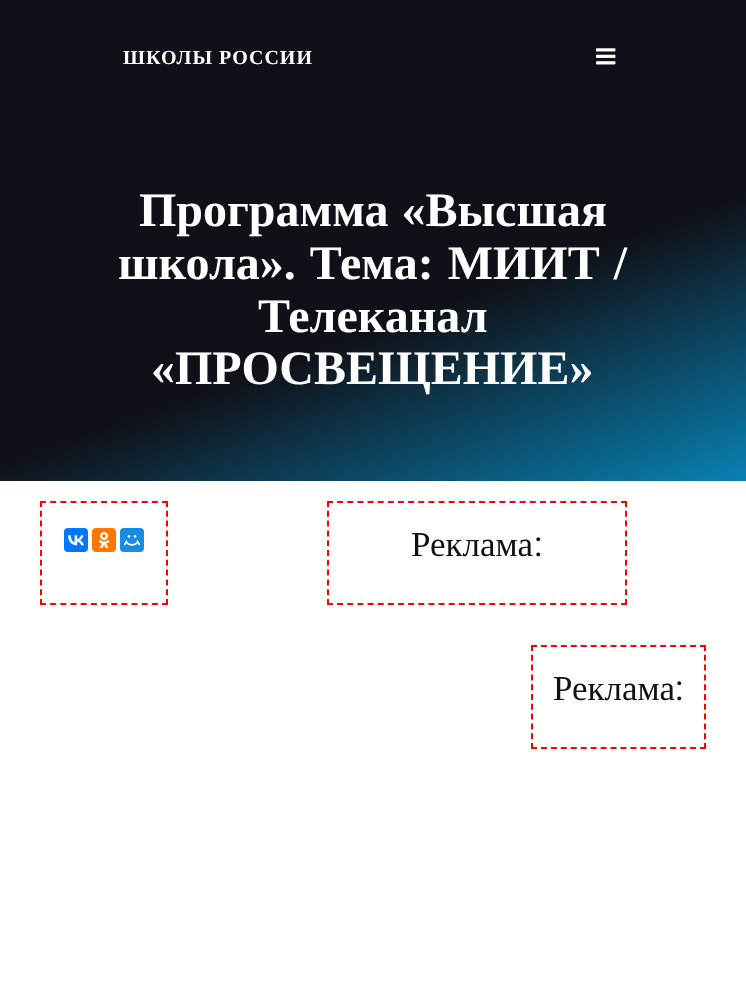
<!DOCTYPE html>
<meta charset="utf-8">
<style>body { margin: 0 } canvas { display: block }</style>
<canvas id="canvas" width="746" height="986"></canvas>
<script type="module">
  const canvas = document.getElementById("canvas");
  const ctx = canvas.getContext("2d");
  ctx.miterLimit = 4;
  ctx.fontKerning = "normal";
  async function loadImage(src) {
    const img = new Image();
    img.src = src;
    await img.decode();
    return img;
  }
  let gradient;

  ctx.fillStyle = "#ffffff";
  ctx.fillRect(0, 0, 746, 986);
  gradient = ctx.createLinearGradient(252, -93, 494, 574);
  gradient.addColorStop(0.62, "#101118");
  gradient.addColorStop(1, "#0882b4");
  ctx.fillStyle = gradient;
  ctx.fillRect(0, 0, 746, 481);
  ctx.letterSpacing = "1px";
  ctx.font = "bold 20px Liberation Serif";
  ctx.fillStyle = "#ffffff";
  ctx.fillText("ШКОЛЫ РОССИИ", 123, 64);
  ctx.drawImage(await loadImage("img1.png"), 596, 48, 20, 17);
  ctx.letterSpacing = "0px";
  ctx.wordSpacing = "1px";
  ctx.font = "bold 48px Liberation Serif";
  ctx.fillText("Программа «Высшая", 139, 226);
  ctx.wordSpacing = "2px";
  ctx.fillText("школа». Тема: МИИТ /", 118, 279);
  ctx.wordSpacing = "0px";
  ctx.fillText("Телеканал", 258, 332);
  ctx.fillText("«ПРОСВЕЩЕНИЕ»", 151, 384);
  ctx.beginPath();
  ctx.moveTo(40, 502);
  ctx.lineTo(168, 502);
  ctx.strokeStyle = "#ff0000";
  ctx.lineWidth = 2;
  ctx.setLineDash([6, 4.17]);
  ctx.stroke();
  ctx.beginPath();
  ctx.moveTo(167, 501);
  ctx.lineTo(167, 605);
  ctx.setLineDash([6, 3.8]);
  ctx.stroke();
  ctx.beginPath();
  ctx.moveTo(40, 604);
  ctx.lineTo(168, 604);
  ctx.setLineDash([6, 4.17]);
  ctx.stroke();
  ctx.beginPath();
  ctx.moveTo(41, 501);
  ctx.lineTo(41, 605);
  ctx.setLineDash([6, 3.8]);
  ctx.stroke();
  ctx.fillStyle = "#0077ff";
  ctx.beginPath();
  ctx.roundRect(64, 528, 24, 24, 4);
  ctx.fill();
  ctx.drawImage(await loadImage("img2.png"), 68, 535, 16, 11);
  ctx.fillStyle = "#ff7700";
  ctx.beginPath();
  ctx.roundRect(92, 528, 24, 24, 4);
  ctx.fill();
  ctx.drawImage(await loadImage("img3.png"), 98, 532, 12, 16);
  ctx.fillStyle = "#168de2";
  ctx.beginPath();
  ctx.roundRect(120, 528, 24, 24, 4);
  ctx.fill();
  ctx.drawImage(await loadImage("img4.png"), 124, 535, 16, 11);
  ctx.beginPath();
  ctx.moveTo(327, 502);
  ctx.lineTo(627, 502);
  ctx.setLineDash([6, 4.14]);
  ctx.stroke();
  ctx.beginPath();
  ctx.moveTo(626, 501);
  ctx.lineTo(626, 605);
  ctx.setLineDash([6, 3.8]);
  ctx.stroke();
  ctx.beginPath();
  ctx.moveTo(327, 604);
  ctx.lineTo(627, 604);
  ctx.setLineDash([6, 4.14]);
  ctx.stroke();
  ctx.beginPath();
  ctx.moveTo(328, 501);
  ctx.lineTo(328, 605);
  ctx.setLineDash([6, 3.8]);
  ctx.stroke();
  ctx.font = "35px Liberation Serif";
  ctx.fillStyle = "#101118";
  ctx.fillText("Реклама", 411, 556);
  ctx.font = "35px Heebo";
  ctx.fillText(":", 534, 556);
  ctx.beginPath();
  ctx.moveTo(531, 646);
  ctx.lineTo(706, 646);
  ctx.setLineDash([6, 3.94]);
  ctx.stroke();
  ctx.beginPath();
  ctx.moveTo(705, 645);
  ctx.lineTo(705, 749);
  ctx.setLineDash([6, 3.8]);
  ctx.stroke();
  ctx.beginPath();
  ctx.moveTo(531, 748);
  ctx.lineTo(706, 748);
  ctx.setLineDash([6, 3.94]);
  ctx.stroke();
  ctx.beginPath();
  ctx.moveTo(532, 645);
  ctx.lineTo(532, 749);
  ctx.setLineDash([6, 3.8]);
  ctx.stroke();
  ctx.font = "35px Liberation Serif";
  ctx.fillText("Реклама", 553, 700);
  ctx.font = "35px Heebo";
  ctx.fillText(":", 675, 700);
</script>
